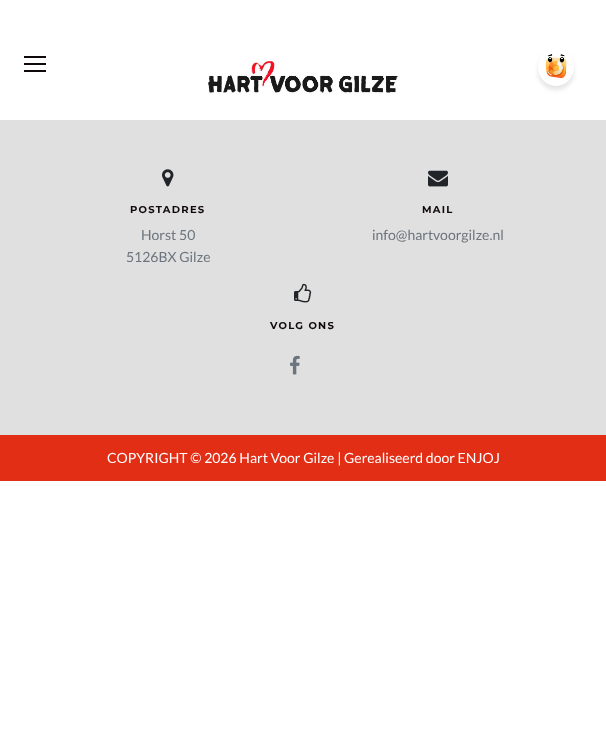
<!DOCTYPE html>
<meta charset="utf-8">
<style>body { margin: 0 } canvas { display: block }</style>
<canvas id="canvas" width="606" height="750"></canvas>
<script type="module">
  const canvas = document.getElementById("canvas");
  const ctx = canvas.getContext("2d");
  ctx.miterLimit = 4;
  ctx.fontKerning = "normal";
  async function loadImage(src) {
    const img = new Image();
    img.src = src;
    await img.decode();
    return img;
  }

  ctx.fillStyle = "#ffffff";
  ctx.fillRect(0, 0, 606, 750);
  ctx.fillStyle = "#10090c";
  ctx.fillRect(24, 56, 22, 2);
  ctx.fillRect(24, 63, 22, 2);
  ctx.fillRect(24, 70, 22, 2);
  ctx.drawImage(await loadImage("img1.png"), 208, 61, 190, 33);
  ctx.fillStyle = "rgba(0, 0, 0, 0.1)";
  ctx.filter = "blur(2px)";
  ctx.beginPath();
  ctx.roundRect(538, 52, 36, 38, 18);
  ctx.fill();
  ctx.filter = "none";
  ctx.fillStyle = "#ffffff";
  ctx.beginPath();
  ctx.ellipse(556, 67, 18, 19, 0, 0, Math.PI * 2);
  ctx.fill();
  ctx.drawImage(await loadImage("img2.png"), 545, 54, 22, 25);
  ctx.fillStyle = "#e0e0e0";
  ctx.fillRect(0, 120, 606, 315);
  ctx.drawImage(await loadImage("img3.png"), 162, 169, 12, 18);
  ctx.letterSpacing = "1.25px";
  ctx.font = "bold 10px Montserrat";
  ctx.fillStyle = "#10090c";
  ctx.fillText("POSTADRES", 130, 213);
  ctx.letterSpacing = "0px";
  ctx.font = "14px Lato";
  ctx.fillStyle = "#6c757d";
  ctx.fillText("Horst 50", 141, 240);
  ctx.fillText("5126BX Gilze", 126, 262);
  ctx.drawImage(await loadImage("img4.png"), 428, 170, 20, 17);
  ctx.letterSpacing = "1.25px";
  ctx.font = "bold 10px Montserrat";
  ctx.fillStyle = "#10090c";
  ctx.fillText("MAIL", 422, 213);
  ctx.letterSpacing = "0px";
  ctx.font = "14px Lato";
  ctx.fillStyle = "#6c757d";
  ctx.fillText("info@hartvoorgilze.nl", 372, 240);
  ctx.drawImage(await loadImage("img5.png"), 294, 283, 18, 20);
  ctx.letterSpacing = "1.25px";
  ctx.font = "bold 10px Montserrat";
  ctx.fillStyle = "#10090c";
  ctx.fillText("VOLG ONS", 270, 329);
  ctx.drawImage(await loadImage("img6.png"), 290, 355, 10, 20);
  ctx.fillStyle = "#e32e16";
  ctx.fillRect(0, 435, 606, 46);
  ctx.letterSpacing = "0px";
  ctx.font = "14px Lato";
  ctx.fillStyle = "#ffffff";
  ctx.fillText("COPYRIGHT © 2026 Hart Voor Gilze | Gerealiseerd door ENJOJ", 107, 463);
</script>
